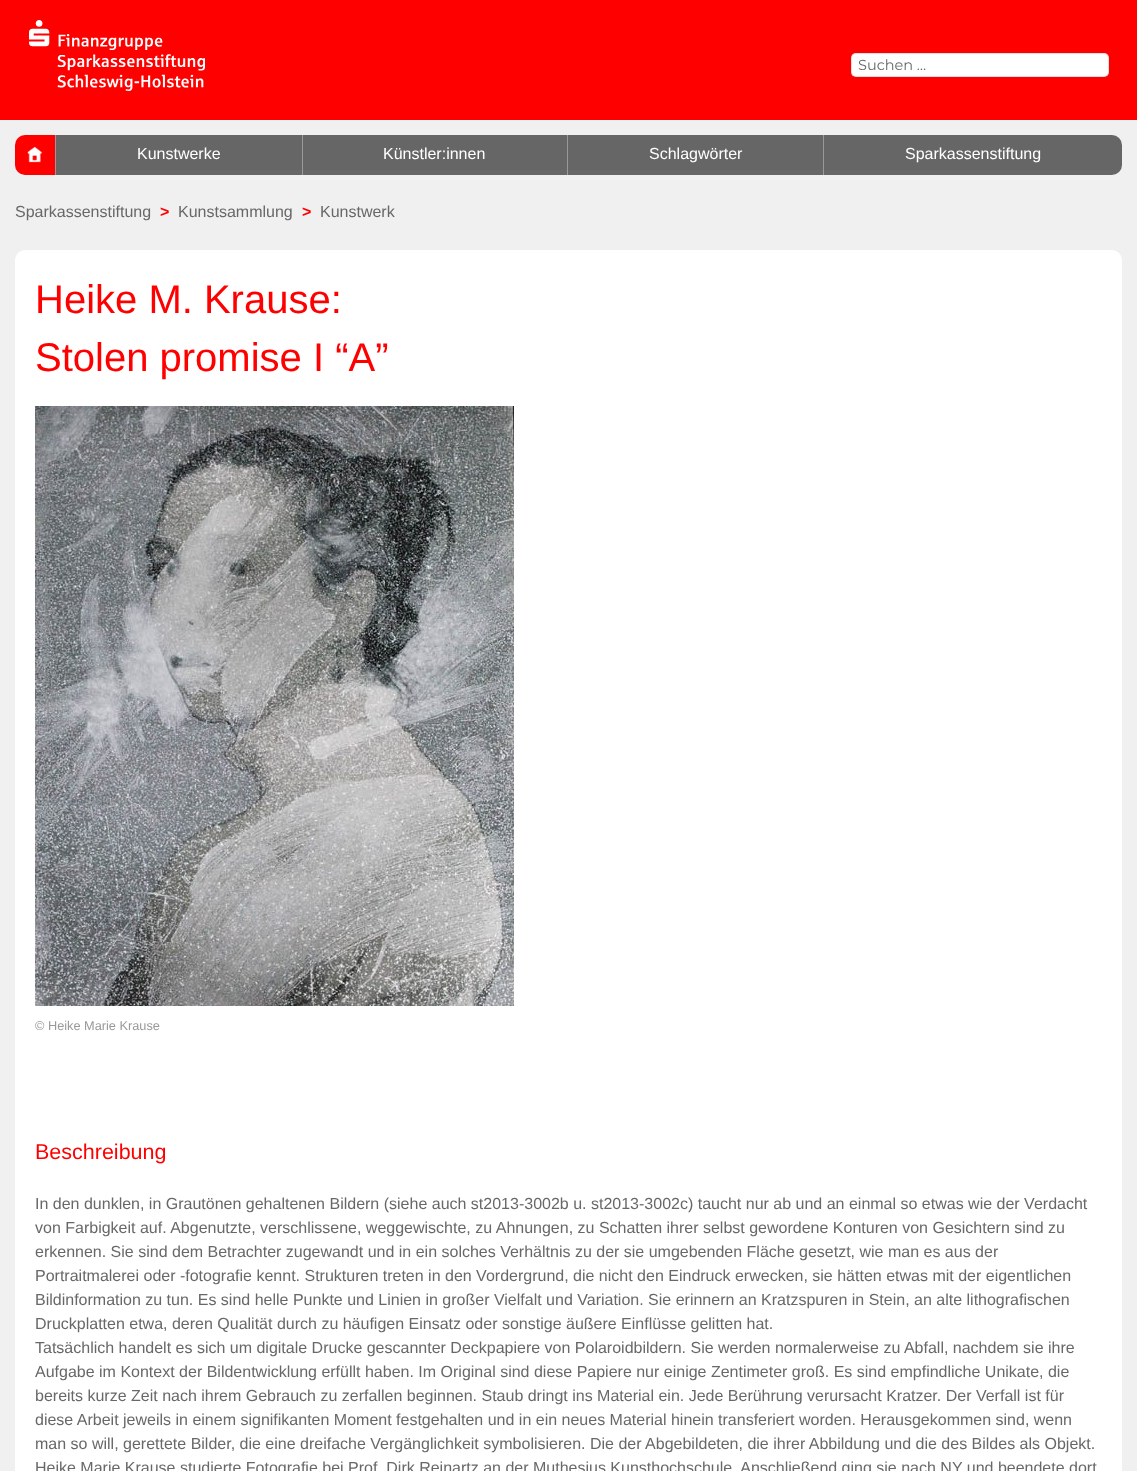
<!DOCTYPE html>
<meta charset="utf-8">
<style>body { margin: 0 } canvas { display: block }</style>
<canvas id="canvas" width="1137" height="1471"></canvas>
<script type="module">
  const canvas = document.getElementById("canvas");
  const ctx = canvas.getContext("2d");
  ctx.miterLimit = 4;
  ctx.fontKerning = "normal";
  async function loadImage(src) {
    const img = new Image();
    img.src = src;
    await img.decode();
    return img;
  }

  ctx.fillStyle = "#ff0000";
  ctx.fillRect(0, 0, 1137, 1471);
  ctx.drawImage(await loadImage("img1.png"), 29, 20, 176, 71);
  ctx.fillStyle = "#ffffff";
  ctx.beginPath();
  ctx.roundRect(851, 53, 258, 24, 5);
  ctx.fill();
  ctx.beginPath();
  ctx.roundRect(851.5, 53.5, 257, 23, 4.5);
  ctx.strokeStyle = "rgba(102, 102, 102, 0.2)";
  ctx.stroke();
  ctx.font = "100 14.5px Montserrat";
  ctx.fillStyle = "#686868";
  ctx.fillText("Suchen …", 858, 70);
  ctx.fillStyle = "#f0f0f0";
  ctx.fillRect(0, 120, 1137, 1351);
  ctx.fillStyle = "#ff0000";
  ctx.beginPath();
  ctx.roundRect(15, 135, 40, 40, [10, 0, 0, 10]);
  ctx.fill();
  ctx.drawImage(await loadImage("img2.png"), 27, 147, 16, 16);
  ctx.fillStyle = "#666666";
  ctx.fillRect(56, 135, 246, 40);
  ctx.fillStyle = "#999999";
  ctx.fillRect(55, 135, 1, 40);
  ctx.font = "16px Liberation Sans";
  ctx.fillStyle = "#ffffff";
  ctx.fillText("Kunstwerke", 137, 159);
  ctx.fillStyle = "#666666";
  ctx.fillRect(303, 135, 264, 40);
  ctx.fillStyle = "#999999";
  ctx.fillRect(302, 135, 1, 40);
  ctx.fillStyle = "#ffffff";
  ctx.fillText("Künstler:innen", 383, 159);
  ctx.fillStyle = "#666666";
  ctx.fillRect(568, 135, 255, 40);
  ctx.fillStyle = "#999999";
  ctx.fillRect(567, 135, 1, 40);
  ctx.fillStyle = "#ffffff";
  ctx.fillText("Schlagwörter", 649, 159);
  ctx.fillStyle = "#666666";
  ctx.beginPath();
  ctx.roundRect(823, 135, 299, 40, [0, 10, 10, 0]);
  ctx.fill();
  ctx.fillStyle = "#999999";
  ctx.fillRect(823, 135, 1, 40);
  ctx.fillStyle = "#ffffff";
  ctx.fillText("Sparkassenstiftung", 905, 159);
  ctx.fillStyle = "#686868";
  ctx.fillText("Sparkassenstiftung", 15, 217);
  ctx.font = "bold 16px Liberation Sans";
  ctx.fillStyle = "#ff0000";
  ctx.fillText(">", 160, 217);
  ctx.font = "16px Liberation Sans";
  ctx.fillStyle = "#686868";
  ctx.fillText("Kunstsammlung", 178, 217);
  ctx.font = "bold 16px Liberation Sans";
  ctx.fillStyle = "#ff0000";
  ctx.fillText(">", 302, 217);
  ctx.font = "16px Liberation Sans";
  ctx.fillStyle = "#686868";
  ctx.fillText("Kunstwerk", 320, 217);
  ctx.fillStyle = "#ffffff";
  ctx.beginPath();
  ctx.roundRect(15, 250, 1107, 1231, 10);
  ctx.fill();
  ctx.font = "40px Liberation Sans";
  ctx.fillStyle = "#ff0000";
  ctx.fillText("Heike M. Krause:", 35, 313);
  ctx.fillText("Stolen promise I “A”", 35, 371);
  ctx.drawImage(await loadImage("img3.png"), 35, 406, 479, 600);
  ctx.font = "12.75px Liberation Sans";
  ctx.fillStyle = "#999999";
  ctx.fillText("© Heike Marie Krause", 35, 1030);
  ctx.font = "21.5px Liberation Sans";
  ctx.fillStyle = "#ff0000";
  ctx.fillText("Beschreibung", 35, 1159);
  ctx.font = "16px Liberation Sans";
  ctx.fillStyle = "#686868";
  ctx.fillText("In den dunklen, in Grautönen gehaltenen Bildern (siehe auch st2013-3002b u. st2013-3002c) taucht nur ab und an einmal so etwas wie der Verdacht", 35, 1209);
  ctx.fillText("von Farbigkeit auf. Abgenutzte, verschlissene, weggewischte, zu Ahnungen, zu Schatten ihrer selbst gewordene Konturen von Gesichtern sind zu", 35, 1233);
  ctx.fillText("erkennen. Sie sind dem Betrachter zugewandt und in ein solches Verhältnis zu der sie umgebenden Fläche gesetzt, wie man es aus der", 35, 1257);
  ctx.fillText("Portraitmalerei oder -fotografie kennt. Strukturen treten in den Vordergrund, die nicht den Eindruck erwecken, sie hätten etwas mit der eigentlichen", 35, 1281);
  ctx.fillText("Bildinformation zu tun. Es sind helle Punkte und Linien in großer Vielfalt und Variation. Sie erinnern an Kratzspuren in Stein, an alte lithografischen", 35, 1305);
  ctx.fillText("Druckplatten etwa, deren Qualität durch zu häufigen Einsatz oder sonstige äußere Einflüsse gelitten hat.", 35, 1329);
  ctx.fillText("Tatsächlich handelt es sich um digitale Drucke gescannter Deckpapiere von Polaroidbildern. Sie werden normalerweise zu Abfall, nachdem sie ihre", 35, 1353);
  ctx.fillText("Aufgabe im Kontext der Bildentwicklung erfüllt haben. Im Original sind diese Papiere nur einige Zentimeter groß. Es sind empfindliche Unikate, die", 35, 1377);
  ctx.fillText("bereits kurze Zeit nach ihrem Gebrauch zu zerfallen beginnen. Staub dringt ins Material ein. Jede Berührung verursacht Kratzer. Der Verfall ist für", 35, 1401);
  ctx.fillText("diese Arbeit jeweils in einem signifikanten Moment festgehalten und in ein neues Material hinein transferiert worden. Herausgekommen sind, wenn", 35, 1425);
  ctx.fillText("man so will, gerettete Bilder, die eine dreifache Vergänglichkeit symbolisieren. Die der Abgebildeten, die ihrer Abbildung und die des Bildes als Objekt.", 35, 1449);
  ctx.fillText("Heike Marie Krause studierte Fotografie bei Prof. Dirk Reinartz an der Muthesius Kunsthochschule. Anschließend ging sie nach NY und beendete dort", 35, 1473);
</script>
